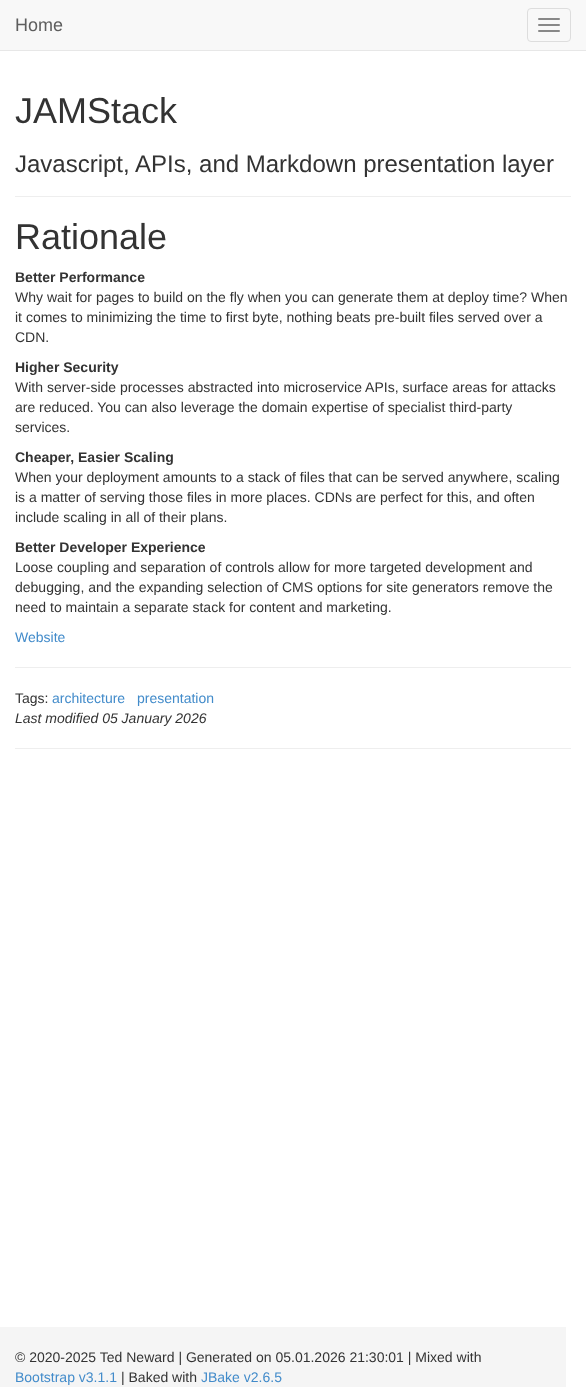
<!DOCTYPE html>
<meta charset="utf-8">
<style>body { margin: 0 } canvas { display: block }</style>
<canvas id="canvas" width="586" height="1396"></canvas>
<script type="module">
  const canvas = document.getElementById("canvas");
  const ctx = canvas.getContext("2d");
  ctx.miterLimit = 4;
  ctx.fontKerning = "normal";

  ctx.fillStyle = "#ffffff";
  ctx.fillRect(0, 0, 586, 1396);
  ctx.fillStyle = "#f8f8f8";
  ctx.fillRect(0, 0, 586, 50);
  ctx.fillStyle = "#e7e7e7";
  ctx.fillRect(0, 50, 586, 1);
  ctx.font = "18px Liberation Sans";
  ctx.fillStyle = "#5e5e5e";
  ctx.fillText("Home", 15, 31);
  ctx.beginPath();
  ctx.roundRect(527.5, 8.5, 43, 33, 3.5);
  ctx.strokeStyle = "#dddddd";
  ctx.stroke();
  ctx.fillStyle = "#888888";
  ctx.beginPath();
  ctx.roundRect(538, 18, 22, 2, 1);
  ctx.fill();
  ctx.beginPath();
  ctx.roundRect(538, 24, 22, 2, 1);
  ctx.fill();
  ctx.beginPath();
  ctx.roundRect(538, 30, 22, 2, 1);
  ctx.fill();
  ctx.fillStyle = "#eeeeee";
  ctx.fillRect(15, 196, 556, 1);
  ctx.font = "36px Liberation Sans";
  ctx.fillStyle = "#333333";
  ctx.fillText("JAMStack", 15, 123);
  ctx.font = "24px Liberation Sans";
  ctx.fillText("Javascript, APIs, and Markdown presentation layer", 15, 172);
  ctx.font = "36px Liberation Sans";
  ctx.fillText("Rationale", 15, 249);
  ctx.font = "bold 14px Liberation Sans";
  ctx.fillText("Better Performance", 15, 282);
  ctx.font = "14px Liberation Sans";
  ctx.fillText("Why wait for pages to build on the fly when you can generate them at deploy time? When", 15, 302);
  ctx.fillText("it comes to minimizing the time to first byte, nothing beats pre-built files served over a", 15, 322);
  ctx.fillText("CDN.", 15, 342);
  ctx.font = "bold 14px Liberation Sans";
  ctx.fillText("Higher Security", 15, 372);
  ctx.font = "14px Liberation Sans";
  ctx.fillText("With server-side processes abstracted into microservice APIs, surface areas for attacks", 15, 392);
  ctx.fillText("are reduced. You can also leverage the domain expertise of specialist third-party", 15, 412);
  ctx.fillText("services.", 15, 432);
  ctx.font = "bold 14px Liberation Sans";
  ctx.fillText("Cheaper, Easier Scaling", 15, 462);
  ctx.font = "14px Liberation Sans";
  ctx.fillText("When your deployment amounts to a stack of files that can be served anywhere, scaling", 15, 482);
  ctx.fillText("is a matter of serving those files in more places. CDNs are perfect for this, and often", 15, 502);
  ctx.fillText("include scaling in all of their plans.", 15, 522);
  ctx.font = "bold 14px Liberation Sans";
  ctx.fillText("Better Developer Experience", 15, 552);
  ctx.font = "14px Liberation Sans";
  ctx.fillText("Loose coupling and separation of controls allow for more targeted development and", 15, 572);
  ctx.fillText("debugging, and the expanding selection of CMS options for site generators remove the", 15, 592);
  ctx.fillText("need to maintain a separate stack for content and marketing.", 15, 612);
  ctx.fillStyle = "#428bca";
  ctx.fillText("Website", 15, 642);
  ctx.fillStyle = "#eeeeee";
  ctx.fillRect(15, 667, 556, 1);
  ctx.fillStyle = "#333333";
  ctx.fillText("Tags:", 15, 703);
  ctx.fillStyle = "#428bca";
  ctx.fillText("architecture", 52, 703);
  ctx.fillText("presentation", 137, 703);
  ctx.font = "italic 14px Liberation Sans";
  ctx.fillStyle = "#333333";
  ctx.fillText("Last modified 05 January 2026", 15, 723);
  ctx.fillStyle = "#eeeeee";
  ctx.fillRect(15, 748, 556, 1);
  ctx.fillStyle = "#f5f5f5";
  ctx.fillRect(0, 1327, 566, 60);
  ctx.font = "14px Liberation Sans";
  ctx.fillStyle = "#333333";
  ctx.fillText("© 2020-2025 Ted Neward | Generated on 05.01.2026 21:30:01 | Mixed with", 15, 1362);
  ctx.fillStyle = "#428bca";
  ctx.fillText("Bootstrap v3.1.1", 15, 1382);
  ctx.fillStyle = "#333333";
  ctx.fillText("| Baked with", 121, 1382);
  ctx.fillStyle = "#428bca";
  ctx.fillText("JBake v2.6.5", 201, 1382);
</script>
